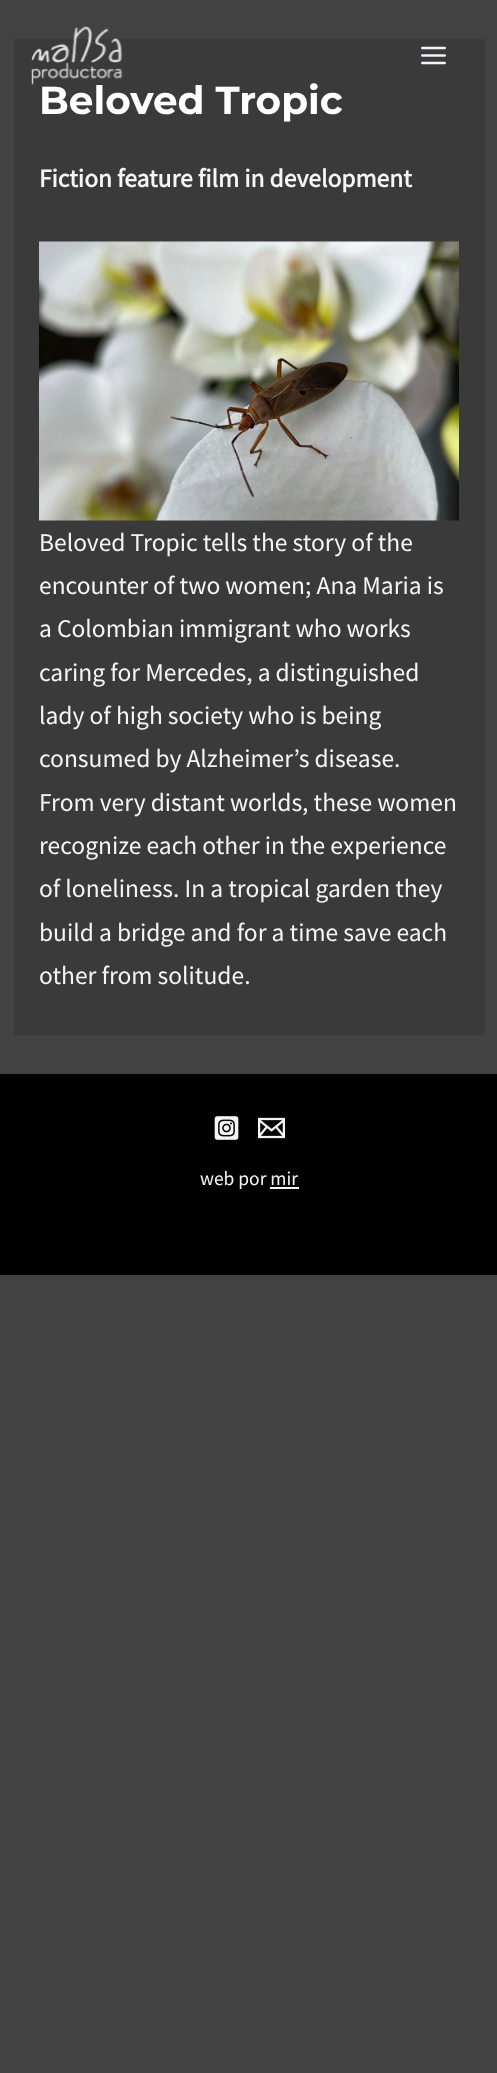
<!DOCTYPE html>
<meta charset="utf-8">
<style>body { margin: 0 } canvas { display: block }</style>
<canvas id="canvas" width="497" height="2073"></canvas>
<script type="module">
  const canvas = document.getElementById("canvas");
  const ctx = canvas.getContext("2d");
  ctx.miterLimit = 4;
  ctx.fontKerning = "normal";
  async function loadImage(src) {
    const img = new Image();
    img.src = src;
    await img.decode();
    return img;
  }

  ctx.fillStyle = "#424242";
  ctx.fillRect(0, 0, 497, 2073);
  ctx.fillStyle = "#3a3a3a";
  ctx.fillRect(14, 39, 471, 996);
  ctx.font = "100 39px Montserrat";
  ctx.fillStyle = "#ffffff";
  ctx.fillText("Beloved Tropic", 39, 114);
  ctx.drawImage(await loadImage("img1.png"), 31, 26, 92, 59);
  ctx.drawImage(await loadImage("img2.png"), 421, 46, 25, 19);
  ctx.font = "bold 25.5px Source Sans Pro";
  ctx.fillStyle = "#f5f5f5";
  ctx.fillText("Fiction feature film in development", 39, 187);
  ctx.drawImage(await loadImage("img3.png"), 39, 241, 420, 280);
  ctx.font = "25.5px Source Sans Pro";
  ctx.fillText("Beloved Tropic tells the story of the", 39, 551);
  ctx.fillText("encounter of two women; Ana Maria is", 39, 594);
  ctx.fillText("a Colombian immigrant who works", 39, 637);
  ctx.fillText("caring for Mercedes, a distinguished", 39, 681);
  ctx.fillText("lady of high society who is being", 39, 724);
  ctx.fillText("consumed by Alzheimer’s disease.", 39, 767);
  ctx.fillText("From very distant worlds, these women", 39, 811);
  ctx.fillText("recognize each other in the experience", 39, 854);
  ctx.fillText("of loneliness. In a tropical garden they", 39, 897);
  ctx.fillText("build a bridge and for a time save each", 39, 941);
  ctx.fillText("other from solitude.", 39, 984);
  ctx.fillStyle = "#000000";
  ctx.fillRect(0, 1074, 497, 201);
  ctx.drawImage(await loadImage("img4.png"), 214, 1116, 25, 24);
  ctx.drawImage(await loadImage("img5.png"), 258, 1117, 27, 22);
  ctx.font = "19.5px Source Sans Pro";
  ctx.fillStyle = "#f5f5f5";
  ctx.fillText("web por mir", 200, 1185);
  ctx.fillRect(270, 1187, 29, 2);
</script>
